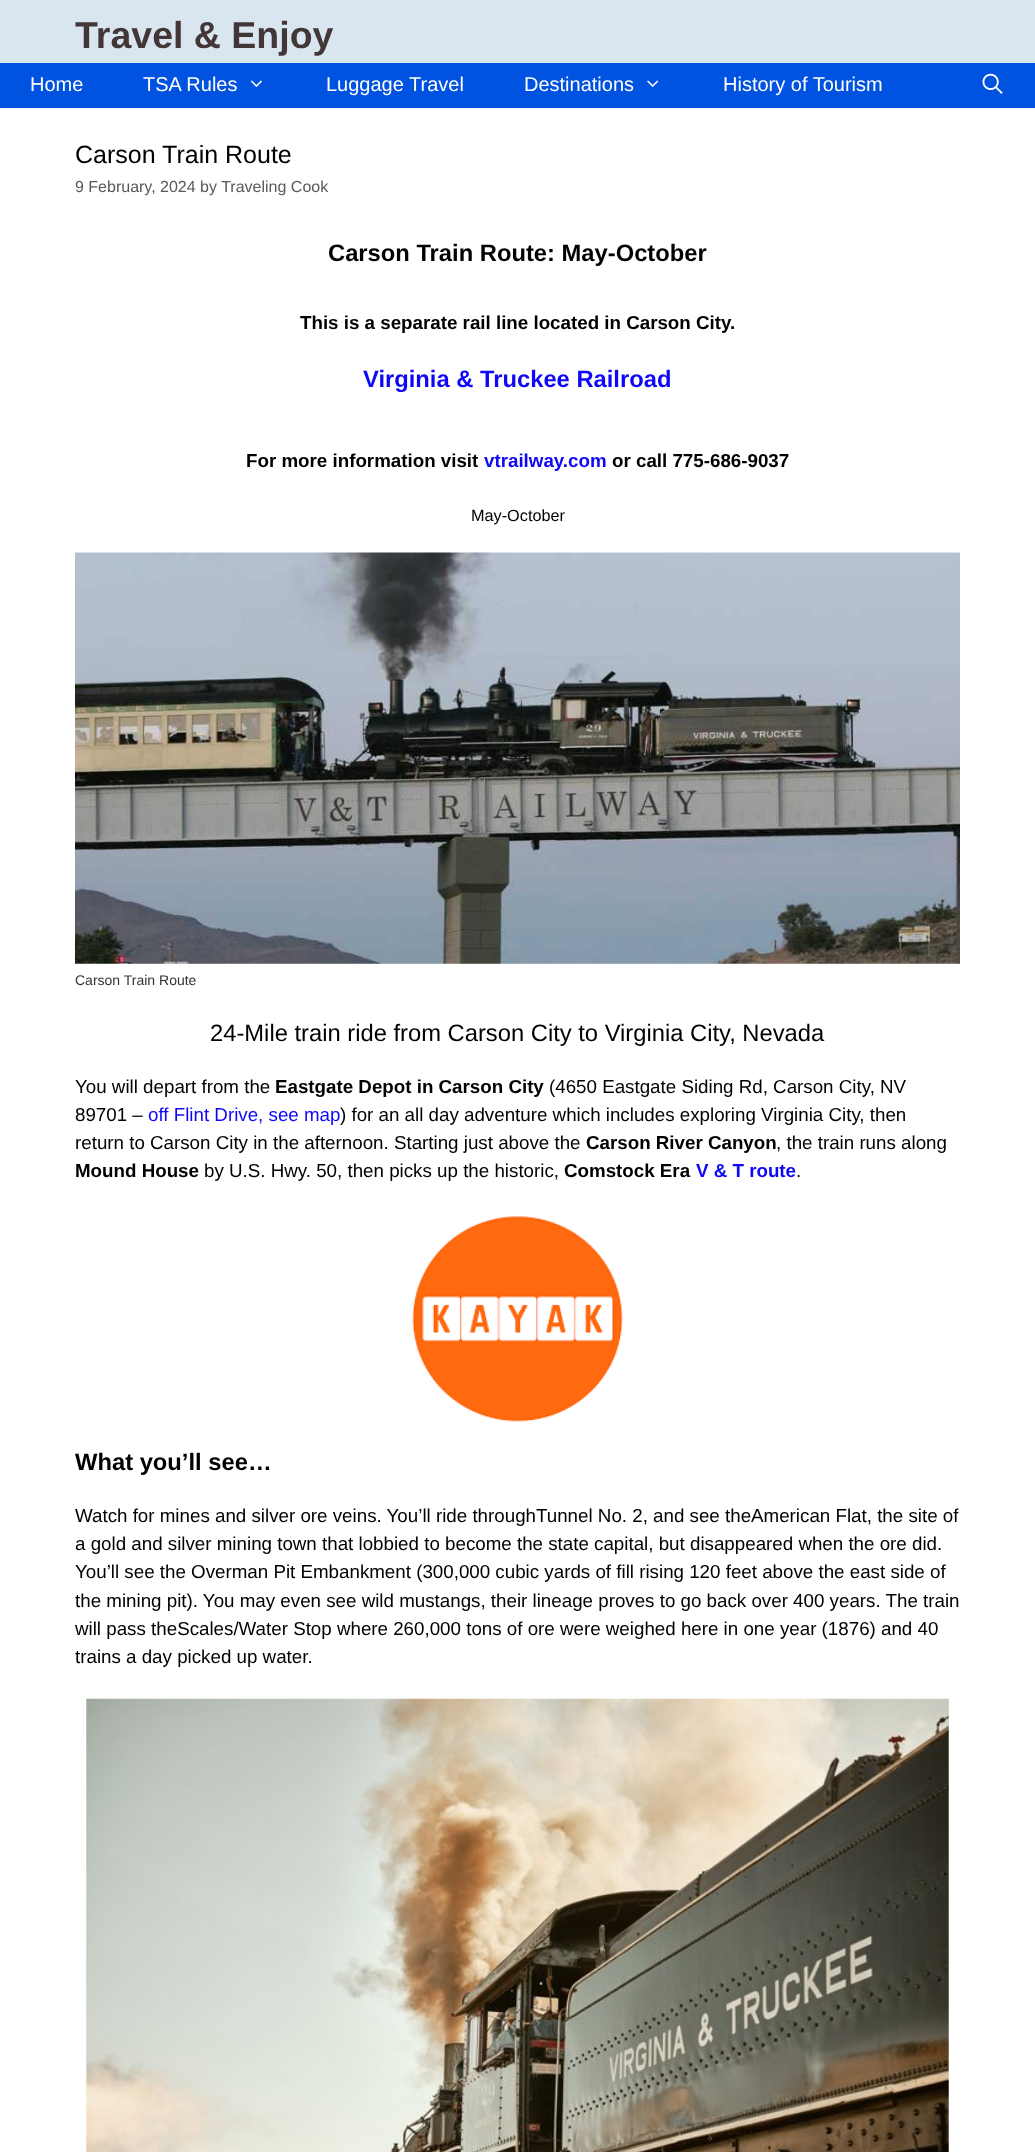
<!DOCTYPE html>
<meta charset="utf-8">
<style>body { margin: 0 } canvas { display: block }</style>
<canvas id="canvas" width="1035" height="2152"></canvas>
<script type="module">
  const canvas = document.getElementById("canvas");
  const ctx = canvas.getContext("2d");
  ctx.miterLimit = 4;
  ctx.fontKerning = "normal";
  async function loadImage(src) {
    const img = new Image();
    img.src = src;
    await img.decode();
    return img;
  }

  ctx.fillStyle = "#ffffff";
  ctx.fillRect(0, 0, 1035, 2152);
  ctx.fillStyle = "#dae6ef";
  ctx.fillRect(0, 0, 1035, 63);
  ctx.font = "bold 37.5px Liberation Sans";
  ctx.fillStyle = "#423637";
  ctx.fillText("Travel & Enjoy", 75, 48);
  ctx.fillStyle = "#0052e0";
  ctx.fillRect(0, 63, 1035, 45);
  ctx.font = "20px Liberation Sans";
  ctx.fillStyle = "#ffffff";
  ctx.fillText("Home", 30, 91);
  ctx.fillText("TSA Rules", 143, 91);
  ctx.drawImage(await loadImage("img1.png"), 250, 80, 12, 7);
  ctx.fillText("Luggage Travel", 326, 91);
  ctx.fillText("Destinations", 524, 91);
  ctx.drawImage(await loadImage("img2.png"), 647, 80, 12, 7);
  ctx.fillText("History of Tourism", 723, 91);
  ctx.drawImage(await loadImage("img3.png"), 982, 73, 21, 21);
  ctx.font = "25px Liberation Sans";
  ctx.fillStyle = "#020000";
  ctx.fillText("Carson Train Route", 75, 163);
  ctx.font = "16px Liberation Sans";
  ctx.fillStyle = "#595959";
  ctx.fillText("9 February, 2024 by Traveling Cook", 75, 192);
  ctx.font = "bold 23.75px Liberation Sans";
  ctx.fillStyle = "#020000";
  ctx.fillText("Carson Train Route: May-October", 328, 261);
  ctx.font = "bold 18.75px Liberation Sans";
  ctx.fillText("This is a separate rail line located in Carson City.", 300, 329);
  ctx.font = "bold 23.75px Liberation Sans";
  ctx.fillStyle = "#0f07f7";
  ctx.fillText("Virginia & Truckee Railroad", 363, 387);
  ctx.font = "bold 18.75px Liberation Sans";
  ctx.fillStyle = "#020000";
  ctx.fillText("For more information visit", 246, 467);
  ctx.fillStyle = "#0f07f7";
  ctx.fillText("vtrailway.com", 484, 467);
  ctx.fillStyle = "#020000";
  ctx.fillText("or call 775-686-9037", 612, 467);
  ctx.font = "16.25px Liberation Sans";
  ctx.fillText("May-October", 471, 521);
  ctx.drawImage(await loadImage("img4.png"), 75, 552, 885, 412);
  ctx.font = "14px Liberation Sans";
  ctx.fillStyle = "#353333";
  ctx.fillText("Carson Train Route", 75, 985);
  ctx.font = "23.75px Liberation Sans";
  ctx.fillStyle = "#020000";
  ctx.fillText("24-Mile train ride from Carson City to Virginia City, Nevada", 210, 1041);
  ctx.font = "18.75px Liberation Sans";
  ctx.fillText("You will depart from the", 75, 1093);
  ctx.font = "bold 18.75px Liberation Sans";
  ctx.fillText("Eastgate Depot in Carson City", 275, 1093);
  ctx.font = "18.75px Liberation Sans";
  ctx.fillText("(4650 Eastgate Siding Rd, Carson City, NV", 549, 1093);
  ctx.fillText("89701 –", 75, 1121);
  ctx.fillStyle = "#0f07f7";
  ctx.fillText("off Flint Drive, see map", 148, 1121);
  ctx.fillStyle = "#020000";
  ctx.fillText(") for an all day adventure which includes exploring Virginia City, then", 340, 1121);
  ctx.fillText("return to Carson City in the afternoon. Starting just above the", 75, 1149);
  ctx.font = "bold 18.75px Liberation Sans";
  ctx.fillText("Carson River Canyon", 586, 1149);
  ctx.font = "18.75px Liberation Sans";
  ctx.fillText(", the train runs along", 776, 1149);
  ctx.font = "bold 18.75px Liberation Sans";
  ctx.fillText("Mound House", 75, 1177);
  ctx.font = "18.75px Liberation Sans";
  ctx.fillText("by U.S. Hwy. 50, then picks up the historic,", 204, 1177);
  ctx.font = "bold 18.75px Liberation Sans";
  ctx.fillText("Comstock Era", 564, 1177);
  ctx.fillStyle = "#0f07f7";
  ctx.fillText("V & T route", 696, 1177);
  ctx.font = "18.75px Liberation Sans";
  ctx.fillStyle = "#020000";
  ctx.fillText(".", 796, 1177);
  ctx.drawImage(await loadImage("img5.png"), 412, 1216, 211, 206);
  ctx.font = "bold 23.75px Liberation Sans";
  ctx.fillText("What you’ll see…", 75, 1470);
  ctx.font = "18.75px Liberation Sans";
  ctx.fillText("Watch for mines and silver ore veins. You’ll ride throughTunnel No. 2, and see theAmerican Flat, the site of", 75, 1522);
  ctx.fillText("a gold and silver mining town that lobbied to become the state capital, but disappeared when the ore did.", 75, 1550);
  ctx.fillText("You’ll see the Overman Pit Embankment (300,000 cubic yards of fill rising 120 feet above the east side of", 75, 1578);
  ctx.fillText("the mining pit). You may even see wild mustangs, their lineage proves to go back over 400 years. The train", 75, 1607);
  ctx.fillText("will pass theScales/Water Stop where 260,000 tons of ore were weighed here in one year (1876) and 40", 75, 1635);
  ctx.fillText("trains a day picked up water.", 75, 1663);
  ctx.drawImage(await loadImage("img6.png"), 86, 1698, 863, 454);
</script>
